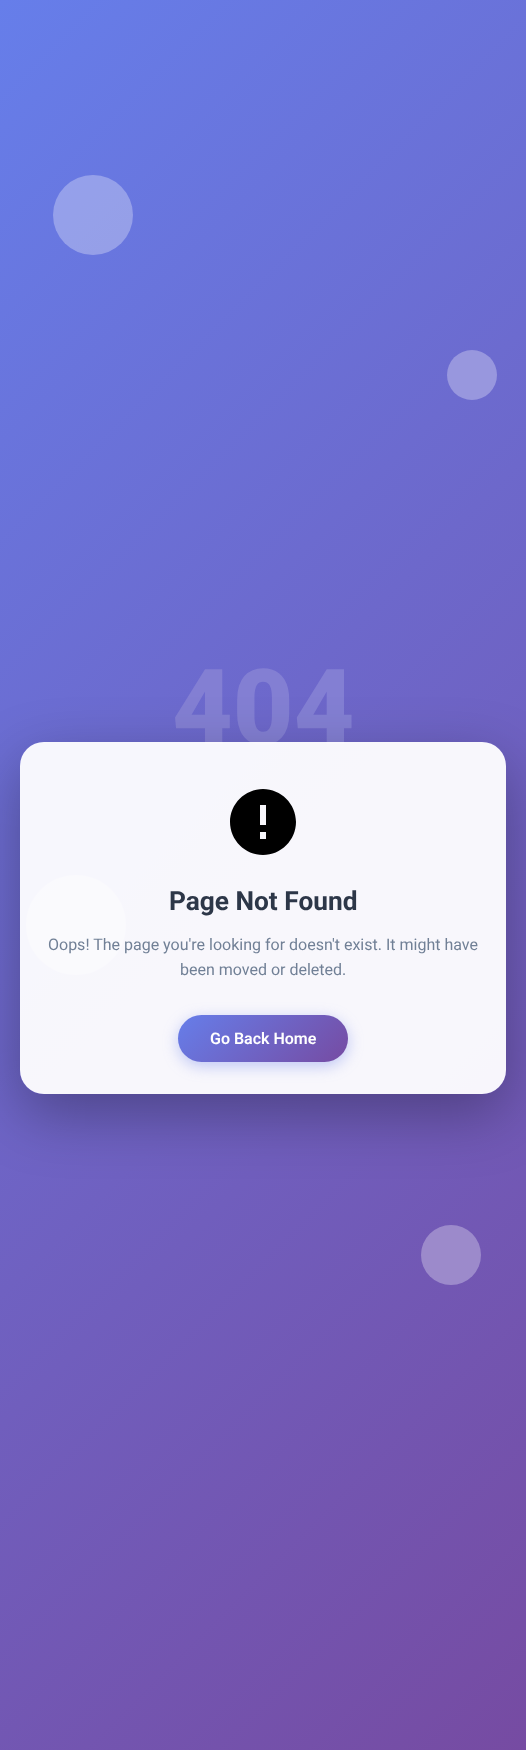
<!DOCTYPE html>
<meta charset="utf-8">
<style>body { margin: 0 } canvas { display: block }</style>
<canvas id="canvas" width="526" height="1750"></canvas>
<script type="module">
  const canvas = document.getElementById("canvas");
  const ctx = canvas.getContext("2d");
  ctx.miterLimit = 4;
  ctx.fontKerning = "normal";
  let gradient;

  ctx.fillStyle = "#ffffff";
  ctx.fillRect(0, 0, 526, 1750);
  gradient = ctx.createLinearGradient(-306, 306, 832, 1444);
  gradient.addColorStop(0, "#667eea");
  gradient.addColorStop(1, "#764ba2");
  ctx.fillStyle = gradient;
  ctx.fillRect(0, 0, 526, 1750);
  ctx.fillStyle = "rgba(255, 255, 255, 0.3)";
  ctx.beginPath();
  ctx.arc(93, 215, 40, 0, Math.PI * 2);
  ctx.fill();
  ctx.fillStyle = "#9897de";
  ctx.beginPath();
  ctx.arc(472, 375, 25, 0, Math.PI * 2);
  ctx.fill();
  ctx.font = "900 105px Roboto";
  ctx.fillStyle = "#837fd3";
  ctx.fillText("404", 172, 744);
  ctx.fillStyle = "rgba(255, 255, 255, 0.3)";
  ctx.beginPath();
  ctx.arc(76, 925, 50, 0, Math.PI * 2);
  ctx.fill();
  ctx.save();
  ctx.beginPath();
  ctx.moveTo(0, 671);
  ctx.lineTo(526, 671);
  ctx.lineTo(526, 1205);
  ctx.lineTo(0, 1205);
  ctx.closePath();
  ctx.moveTo(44, 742);
  ctx.lineTo(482, 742);
  ctx.bezierCurveTo(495.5, 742, 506, 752.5, 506, 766);
  ctx.lineTo(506, 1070);
  ctx.bezierCurveTo(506, 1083.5, 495.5, 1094, 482, 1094);
  ctx.lineTo(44, 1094);
  ctx.bezierCurveTo(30.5, 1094, 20, 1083.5, 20, 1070);
  ctx.lineTo(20, 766);
  ctx.bezierCurveTo(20, 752.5, 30.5, 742, 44, 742);
  ctx.closePath();
  ctx.clip("evenodd");
  ctx.fillStyle = "rgba(0, 0, 0, 0.3)";
  ctx.filter = "blur(30px)";
  ctx.beginPath();
  ctx.roundRect(20, 762, 486, 352, 24);
  ctx.fill();
  ctx.filter = "none";
  ctx.restore();
  ctx.fillStyle = "rgba(255, 255, 255, 0.95)";
  ctx.beginPath();
  ctx.roundRect(20, 742, 486, 352, 24);
  ctx.fill();
  ctx.fillStyle = "#000000";
  ctx.beginPath();
  ctx.moveTo(263, 789);
  ctx.bezierCurveTo(245, 789, 230, 804, 230, 822);
  ctx.bezierCurveTo(230, 840, 245, 855, 263, 855);
  ctx.bezierCurveTo(281, 855, 296, 840, 296, 822);
  ctx.bezierCurveTo(296, 804, 281, 789, 263, 789);
  ctx.closePath();
  ctx.moveTo(266, 839);
  ctx.lineTo(260, 839);
  ctx.lineTo(260, 832);
  ctx.lineTo(266, 832);
  ctx.closePath();
  ctx.moveTo(266, 825);
  ctx.lineTo(260, 825);
  ctx.lineTo(260, 805);
  ctx.lineTo(266, 805);
  ctx.closePath();
  ctx.fill();
  ctx.font = "bold 26.25px Roboto";
  ctx.fillStyle = "#2d3748";
  ctx.fillText("Page Not Found", 169, 910);
  ctx.font = "16px Roboto";
  ctx.fillStyle = "#718096";
  ctx.fillText("Oops! The page you're looking for doesn't exist. It might have", 48, 950);
  ctx.fillText("been moved or deleted.", 180, 975);
  ctx.fillStyle = "rgba(102, 126, 234, 0.4)";
  ctx.filter = "blur(7.5px)";
  ctx.beginPath();
  ctx.roundRect(178, 1019, 170, 47, 23.5);
  ctx.fill();
  ctx.filter = "none";
  gradient = ctx.createLinearGradient(209, 984, 317, 1093);
  gradient.addColorStop(0, "#667eea");
  gradient.addColorStop(1, "#764ba2");
  ctx.fillStyle = gradient;
  ctx.beginPath();
  ctx.roundRect(178, 1015, 170, 47, 23.5);
  ctx.fill();
  ctx.font = "600 16px Roboto";
  ctx.fillStyle = "#ffffff";
  ctx.fillText("Go Back Home", 210, 1044);
  ctx.fillStyle = "#9c8acb";
  ctx.beginPath();
  ctx.arc(451, 1255, 30, 0, Math.PI * 2);
  ctx.fill();
</script>
